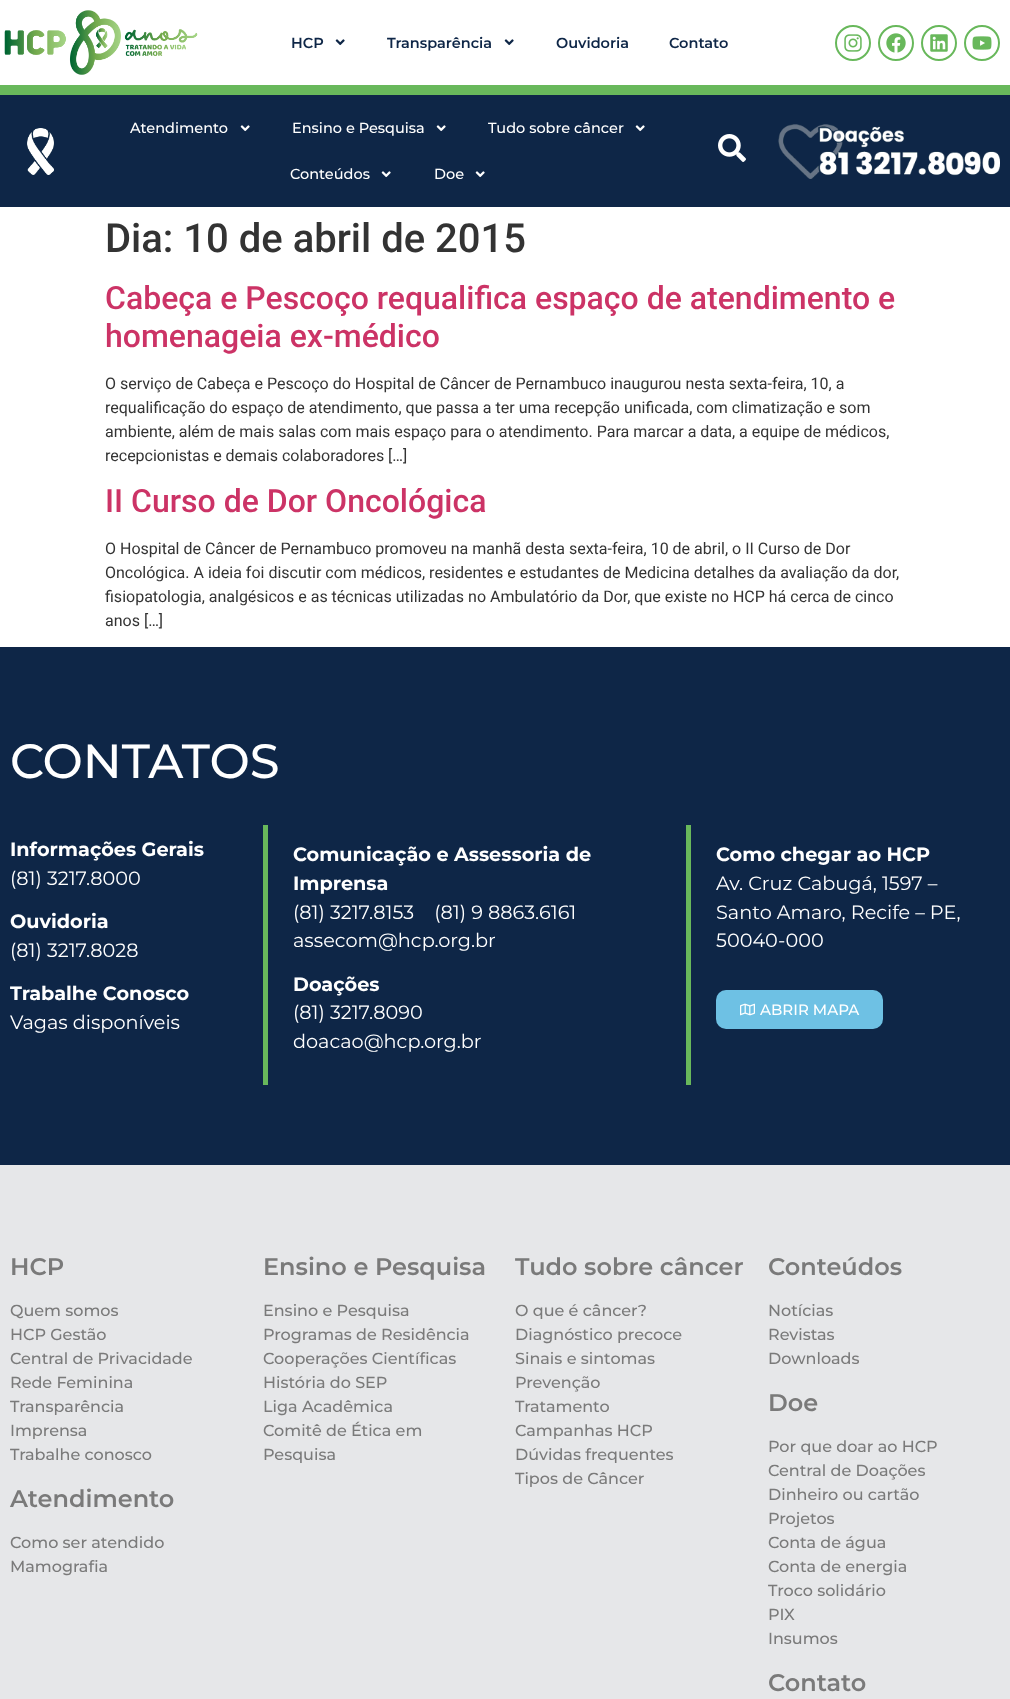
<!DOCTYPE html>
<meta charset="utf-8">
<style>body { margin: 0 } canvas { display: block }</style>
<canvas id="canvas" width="1010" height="1699"></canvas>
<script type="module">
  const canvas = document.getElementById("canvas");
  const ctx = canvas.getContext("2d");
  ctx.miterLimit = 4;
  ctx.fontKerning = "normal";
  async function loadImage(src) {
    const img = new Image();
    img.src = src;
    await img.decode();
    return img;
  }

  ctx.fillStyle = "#ffffff";
  ctx.fillRect(0, 0, 1010, 1699);
  ctx.fillStyle = "#68b85b";
  ctx.fillRect(0, 85, 1010, 10);
  ctx.drawImage(await loadImage("img1.png"), 4, 10, 194, 65);
  ctx.font = "600 14.5px Montserrat";
  ctx.fillStyle = "#0e2647";
  ctx.fillText("HCP", 291, 48);
  ctx.drawImage(await loadImage("img2.png"), 335, 39, 10, 7);
  ctx.fillText("Transparência", 387, 48);
  ctx.drawImage(await loadImage("img2.png"), 504, 39, 10, 7);
  ctx.fillText("Ouvidoria", 556, 48);
  ctx.fillText("Contato", 669, 48);
  ctx.beginPath();
  ctx.arc(853, 43, 17, 0, Math.PI * 2);
  ctx.strokeStyle = "#68b85b";
  ctx.lineWidth = 2;
  ctx.stroke();
  ctx.drawImage(await loadImage("img3.png"), 844, 34, 18, 18);
  ctx.beginPath();
  ctx.arc(896, 43, 17, 0, Math.PI * 2);
  ctx.stroke();
  ctx.drawImage(await loadImage("img4.png"), 886, 33, 20, 20);
  ctx.beginPath();
  ctx.arc(939, 43, 17, 0, Math.PI * 2);
  ctx.stroke();
  ctx.drawImage(await loadImage("img5.png"), 930, 34, 18, 18);
  ctx.beginPath();
  ctx.arc(982, 43, 17, 0, Math.PI * 2);
  ctx.stroke();
  ctx.drawImage(await loadImage("img6.png"), 972, 36, 20, 14);
  ctx.fillRect(0, 95, 1010, 112);
  ctx.drawImage(await loadImage("img7.png"), 27, 128, 27, 47);
  ctx.font = "500 14.5px Montserrat";
  ctx.fillStyle = "#ffffff";
  ctx.fillText("Atendimento", 130, 133);
  ctx.drawImage(await loadImage("img8.png"), 240, 125, 10, 7);
  ctx.fillText("Ensino e Pesquisa", 292, 133);
  ctx.drawImage(await loadImage("img8.png"), 436, 125, 10, 7);
  ctx.fillText("Tudo sobre câncer", 488, 133);
  ctx.drawImage(await loadImage("img8.png"), 635, 125, 10, 7);
  ctx.fillText("Conteúdos", 290, 179);
  ctx.drawImage(await loadImage("img8.png"), 381, 171, 10, 7);
  ctx.fillText("Doe", 434, 179);
  ctx.drawImage(await loadImage("img8.png"), 475, 171, 10, 7);
  ctx.drawImage(await loadImage("img9.png"), 718, 134, 28, 28);
  ctx.drawImage(await loadImage("img10.png"), 778, 124, 222, 55);
  ctx.font = "500 40px Roboto";
  ctx.fillStyle = "#333333";
  ctx.fillText("Dia: 10 de abril de 2015", 105, 252);
  ctx.font = "500 32px Roboto";
  ctx.fillStyle = "#cc3366";
  ctx.fillText("Cabeça e Pescoço requalifica espaço de atendimento e", 105, 309);
  ctx.fillText("homenageia ex-médico", 105, 347);
  ctx.font = "16px Roboto";
  ctx.fillStyle = "#333333";
  ctx.fillText("O serviço de Cabeça e Pescoço do Hospital de Câncer de Pernambuco inaugurou nesta sexta-feira, 10, a", 105, 389);
  ctx.fillText("requalificação do espaço de atendimento, que passa a ter uma recepção unificada, com climatização e som", 105, 413);
  ctx.fillText("ambiente, além de mais salas com mais espaço para o atendimento. Para marcar a data, a equipe de médicos,", 105, 437);
  ctx.fillText("recepcionistas e demais colaboradores […]", 105, 461);
  ctx.font = "500 32px Roboto";
  ctx.fillStyle = "#cc3366";
  ctx.fillText("II Curso de Dor Oncológica", 105, 512);
  ctx.font = "16px Roboto";
  ctx.fillStyle = "#333333";
  ctx.fillText("O Hospital de Câncer de Pernambuco promoveu na manhã desta sexta-feira, 10 de abril, o II Curso de Dor", 105, 554);
  ctx.fillText("Oncológica. A ideia foi discutir com médicos, residentes e estudantes de Medicina detalhes da avaliação da dor,", 105, 578);
  ctx.fillText("fisiopatologia, analgésicos e as técnicas utilizadas no Ambulatório da Dor, que existe no HCP há cerca de cinco", 105, 602);
  ctx.fillText("anos […]", 105, 626);
  ctx.fillStyle = "#0e2647";
  ctx.fillRect(0, 647, 1010, 518);
  ctx.font = "500 48px Montserrat";
  ctx.fillStyle = "#ffffff";
  ctx.fillText("CONTATOS", 10, 778);
  ctx.font = "bold 19.25px Montserrat";
  ctx.fillText("Informações Gerais", 10, 856);
  ctx.font = "19.25px Montserrat";
  ctx.fillText("(81) 3217.8000", 10, 885);
  ctx.font = "bold 19.25px Montserrat";
  ctx.fillText("Ouvidoria", 10, 928);
  ctx.font = "19.25px Montserrat";
  ctx.fillText("(81) 3217.8028", 10, 957);
  ctx.font = "bold 19.25px Montserrat";
  ctx.fillText("Trabalhe Conosco", 10, 1000);
  ctx.font = "19.25px Montserrat";
  ctx.fillText("Vagas disponíveis", 10, 1029);
  ctx.fillStyle = "#68b85b";
  ctx.fillRect(263, 825, 5, 260);
  ctx.font = "bold 19.25px Montserrat";
  ctx.fillStyle = "#ffffff";
  ctx.fillText("Comunicação e Assessoria de", 293, 861);
  ctx.fillText("Imprensa", 293, 890);
  ctx.font = "19.25px Montserrat";
  ctx.fillText("(81) 3217.8153    (81) 9 8863.6161", 293, 919);
  ctx.fillText("assecom@hcp.org.br", 293, 947);
  ctx.font = "bold 19.25px Montserrat";
  ctx.fillText("Doações", 293, 991);
  ctx.font = "19.25px Montserrat";
  ctx.fillText("(81) 3217.8090", 293, 1019);
  ctx.fillText("doacao@hcp.org.br", 293, 1048);
  ctx.fillStyle = "#68b85b";
  ctx.fillRect(686, 825, 5, 260);
  ctx.font = "bold 19.25px Montserrat";
  ctx.fillStyle = "#ffffff";
  ctx.fillText("Como chegar ao HCP", 716, 861);
  ctx.font = "19.25px Montserrat";
  ctx.fillText("Av. Cruz Cabugá, 1597 –", 716, 890);
  ctx.fillText("Santo Amaro, Recife – PE,", 716, 919);
  ctx.fillText("50040-000", 716, 947);
  ctx.fillStyle = "#6ec1e4";
  ctx.beginPath();
  ctx.roundRect(716, 990, 167, 39, 10);
  ctx.fill();
  ctx.drawImage(await loadImage("img11.png"), 740, 1003, 15, 13);
  ctx.font = "500 15px Montserrat";
  ctx.fillStyle = "#ffffff";
  ctx.fillText("ABRIR MAPA", 760, 1015);
  ctx.fillStyle = "#e6e7e9";
  ctx.fillRect(0, 1165, 1010, 534);
  ctx.font = "600 24px Montserrat";
  ctx.fillStyle = "#7a7a7a";
  ctx.fillText("HCP", 10, 1275);
  ctx.font = "500 16px Montserrat";
  ctx.fillText("Quem somos", 10, 1316);
  ctx.fillText("HCP Gestão", 10, 1340);
  ctx.fillText("Central de Privacidade", 10, 1364);
  ctx.fillText("Rede Feminina", 10, 1388);
  ctx.fillText("Transparência", 10, 1412);
  ctx.fillText("Imprensa", 10, 1436);
  ctx.fillText("Trabalhe conosco", 10, 1460);
  ctx.font = "600 24px Montserrat";
  ctx.fillText("Atendimento", 10, 1507);
  ctx.font = "500 16px Montserrat";
  ctx.fillText("Como ser atendido", 10, 1548);
  ctx.fillText("Mamografia", 10, 1572);
  ctx.font = "600 24px Montserrat";
  ctx.fillText("Ensino e Pesquisa", 263, 1275);
  ctx.font = "500 16px Montserrat";
  ctx.fillText("Ensino e Pesquisa", 263, 1316);
  ctx.fillText("Programas de Residência", 263, 1340);
  ctx.fillText("Cooperações Científicas", 263, 1364);
  ctx.fillText("História do SEP", 263, 1388);
  ctx.fillText("Liga Acadêmica", 263, 1412);
  ctx.fillText("Comitê de Ética em", 263, 1436);
  ctx.fillText("Pesquisa", 263, 1460);
  ctx.font = "600 24px Montserrat";
  ctx.fillText("Tudo sobre câncer", 515, 1275);
  ctx.font = "500 16px Montserrat";
  ctx.fillText("O que é câncer?", 515, 1316);
  ctx.fillText("Diagnóstico precoce", 515, 1340);
  ctx.fillText("Sinais e sintomas", 515, 1364);
  ctx.fillText("Prevenção", 515, 1388);
  ctx.fillText("Tratamento", 515, 1412);
  ctx.fillText("Campanhas HCP", 515, 1436);
  ctx.fillText("Dúvidas frequentes", 515, 1460);
  ctx.fillText("Tipos de Câncer", 515, 1484);
  ctx.font = "600 24px Montserrat";
  ctx.fillText("Conteúdos", 768, 1275);
  ctx.font = "500 16px Montserrat";
  ctx.fillText("Notícias", 768, 1316);
  ctx.fillText("Revistas", 768, 1340);
  ctx.fillText("Downloads", 768, 1364);
  ctx.font = "600 24px Montserrat";
  ctx.fillText("Doe", 768, 1411);
  ctx.font = "500 16px Montserrat";
  ctx.fillText("Por que doar ao HCP", 768, 1452);
  ctx.fillText("Central de Doações", 768, 1476);
  ctx.fillText("Dinheiro ou cartão", 768, 1500);
  ctx.fillText("Projetos", 768, 1524);
  ctx.fillText("Conta de água", 768, 1548);
  ctx.fillText("Conta de energia", 768, 1572);
  ctx.fillText("Troco solidário", 768, 1596);
  ctx.fillText("PIX", 768, 1620);
  ctx.fillText("Insumos", 768, 1644);
  ctx.font = "600 24px Montserrat";
  ctx.fillText("Contato", 768, 1691);
</script>
